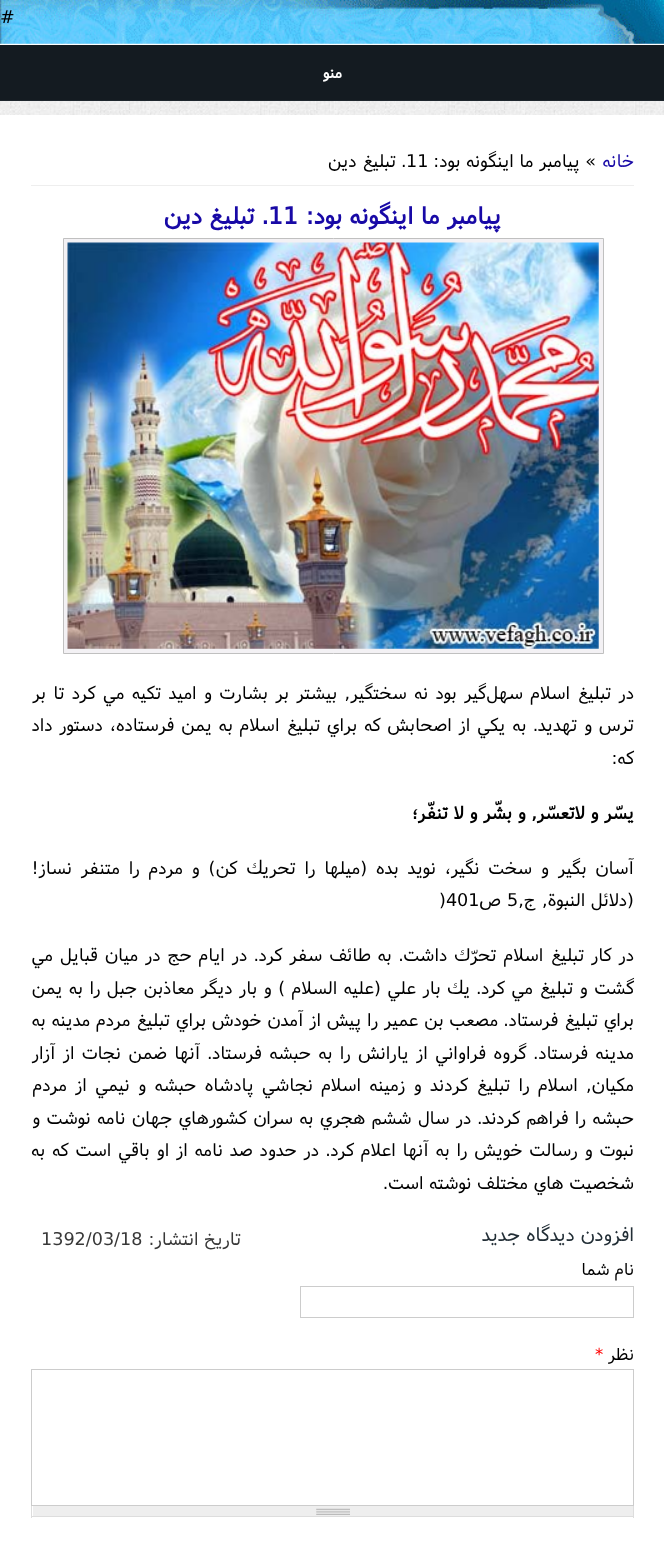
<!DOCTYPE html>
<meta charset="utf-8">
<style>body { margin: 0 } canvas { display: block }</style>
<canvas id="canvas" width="664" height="1549"></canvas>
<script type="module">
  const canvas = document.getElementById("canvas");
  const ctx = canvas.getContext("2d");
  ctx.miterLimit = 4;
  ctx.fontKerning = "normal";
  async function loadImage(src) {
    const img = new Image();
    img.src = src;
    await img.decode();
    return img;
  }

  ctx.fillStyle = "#ffffff";
  ctx.fillRect(0, 0, 664, 1549);
  ctx.drawImage(await loadImage("img1.png"), 0, 43, 664, 72);
  ctx.drawImage(await loadImage("img2.png"), 0, 0, 664, 44);
  ctx.font = "18.75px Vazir";
  ctx.fillStyle = "#000000";
  ctx.fillText("#", 0, 23);
  ctx.fillStyle = "#ffffff";
  ctx.fillRect(0, 44, 664, 1);
  ctx.fillStyle = "#141b21";
  ctx.fillRect(0, 45, 664, 55);
  ctx.fillStyle = "#1e262d";
  ctx.fillRect(0, 100, 664, 1);
  ctx.direction = "rtl";
  ctx.font = "bold 16px Vazir";
  ctx.fillStyle = "#ffffff";
  ctx.fillText("منو", 342, 78);
  ctx.fillStyle = "#eeeeee";
  ctx.fillRect(31, 185, 603, 1);
  ctx.font = "18.75px Vazir";
  ctx.fillStyle = "#1809a6";
  ctx.fillText("خانه", 634, 167);
  ctx.fillStyle = "#000000";
  ctx.fillText("» پیامبر ما اینگونه بود:", 596, 167);
  ctx.direction = "ltr";
  ctx.fillText("11", 406, 167);
  ctx.direction = "rtl";
  ctx.fillText(". تبليغ دین", 406, 167);
  ctx.font = "bold 25px Vazir";
  ctx.fillStyle = "#1809a6";
  ctx.fillText("پیامبر ما اینگونه بود:", 501, 224);
  ctx.direction = "ltr";
  ctx.fillText("11", 268, 224);
  ctx.direction = "rtl";
  ctx.fillText(". تبليغ دین", 268, 224);
  ctx.fillStyle = "#f3f1f4";
  ctx.beginPath();
  ctx.rect(63.5, 238.5, 540, 415);
  ctx.fill();
  ctx.strokeStyle = "#c0c0c0";
  ctx.stroke();
  ctx.drawImage(await loadImage("img3.png"), 67, 242, 532, 407);
  ctx.wordSpacing = "1.75px";
  ctx.font = "18.75px Vazir";
  ctx.fillStyle = "#000000";
  ctx.fillText("در تبليغ اسلام سهل‌گير بود نه سختگير, بيشتر بر بشارت و اميد تكيه مي كرد تا بر", 634, 699);
  ctx.wordSpacing = "1.25px";
  ctx.fillText("ترس و تهديد. به يكي از اصحابش كه براي تبليغ اسلام به يمن فرستاده، دستور داد", 634, 731);
  ctx.wordSpacing = "0px";
  ctx.fillText("كه:", 634, 764);
  ctx.font = "bold 18.75px Vazir";
  ctx.fillText("يسّر و لاتعسّر, و بشّر و لا تنفّر؛", 634, 819);
  ctx.wordSpacing = "3.25px";
  ctx.font = "18.75px Vazir";
  ctx.fillText("آسان بگير و سخت نگير، نويد بده (ميلها را تحريك كن) و مردم را متنفر نساز!", 634, 874);
  ctx.wordSpacing = "0px";
  ctx.fillText("(دلائل النبوة, ج,", 634, 906);
  ctx.direction = "ltr";
  ctx.fillText("5", 507, 906);
  ctx.direction = "rtl";
  ctx.fillText("ص", 501, 906);
  ctx.direction = "ltr";
  ctx.fillText(")401", 439, 906);
  ctx.wordSpacing = "1.4px";
  ctx.direction = "rtl";
  ctx.fillText("در كار تبليغ اسلام تحرّك داشت. به طائف سفر كرد. در ايام حج در ميان قبايل مي", 634, 961);
  ctx.wordSpacing = "0.9px";
  ctx.fillText("گشت و تبليغ مي كرد. يك بار علي (عليه السلام ) و بار ديگر معاذبن جبل را به يمن", 634, 994);
  ctx.wordSpacing = "0.25px";
  ctx.fillText("براي تبليغ فرستاد. مصعب بن عمير را پيش از آمدن خودش براي تبليغ مردم مدينه به", 634, 1026);
  ctx.wordSpacing = "1.75px";
  ctx.fillText("مدينه فرستاد. گروه فراواني از يارانش را به حبشه فرستاد. آنها ضمن نجات از آزار", 634, 1059);
  ctx.wordSpacing = "2.75px";
  ctx.fillText("مكيان, اسلام را تبليغ كردند و زمينه اسلام نجاشي پادشاه حبشه و نيمي از مردم", 634, 1091);
  ctx.wordSpacing = "0.75px";
  ctx.fillText("حبشه را فراهم كردند. در سال ششم هجري به سران كشورهاي جهان نامه نوشت و", 634, 1124);
  ctx.wordSpacing = "1.25px";
  ctx.fillText("نبوت و رسالت خويش را به آنها اعلام كرد. در حدود صد نامه از او باقي است كه به", 634, 1156);
  ctx.wordSpacing = "0px";
  ctx.fillText("شخصيت هاي مختلف نوشته است.", 634, 1189);
  ctx.font = "20px Vazir";
  ctx.fillStyle = "#222e36";
  ctx.fillText("افزودن دیدگاه جدید", 634, 1241);
  ctx.font = "17.5px Vazir";
  ctx.fillStyle = "#000000";
  ctx.fillText("نام شما", 634, 1275);
  ctx.strokeStyle = "#cccccc";
  ctx.strokeRect(300.5, 1286.5, 333, 31);
  ctx.fillText("نظر", 634, 1360);
  ctx.direction = "ltr";
  ctx.fillStyle = "#ff0000";
  ctx.fillText("*", 595, 1360);
  ctx.strokeRect(31.5, 1369.5, 602, 136);
  ctx.fillStyle = "#eeeeee";
  ctx.fillRect(33, 1506, 600, 10);
  ctx.drawImage(await loadImage("img4.png"), 316, 1508, 34, 7);
  ctx.fillStyle = "#dddddd";
  ctx.fillRect(633, 1506, 1, 12);
  ctx.fillRect(31, 1516, 603, 1);
  ctx.fillRect(31, 1506, 1, 12);
  ctx.direction = "rtl";
  ctx.font = "18.75px Vazir";
  ctx.fillStyle = "#383838";
  ctx.fillText("تاریخ انتشار:", 241, 1245);
  ctx.direction = "ltr";
  ctx.fillText("1392/03/18", 41, 1245);
</script>
